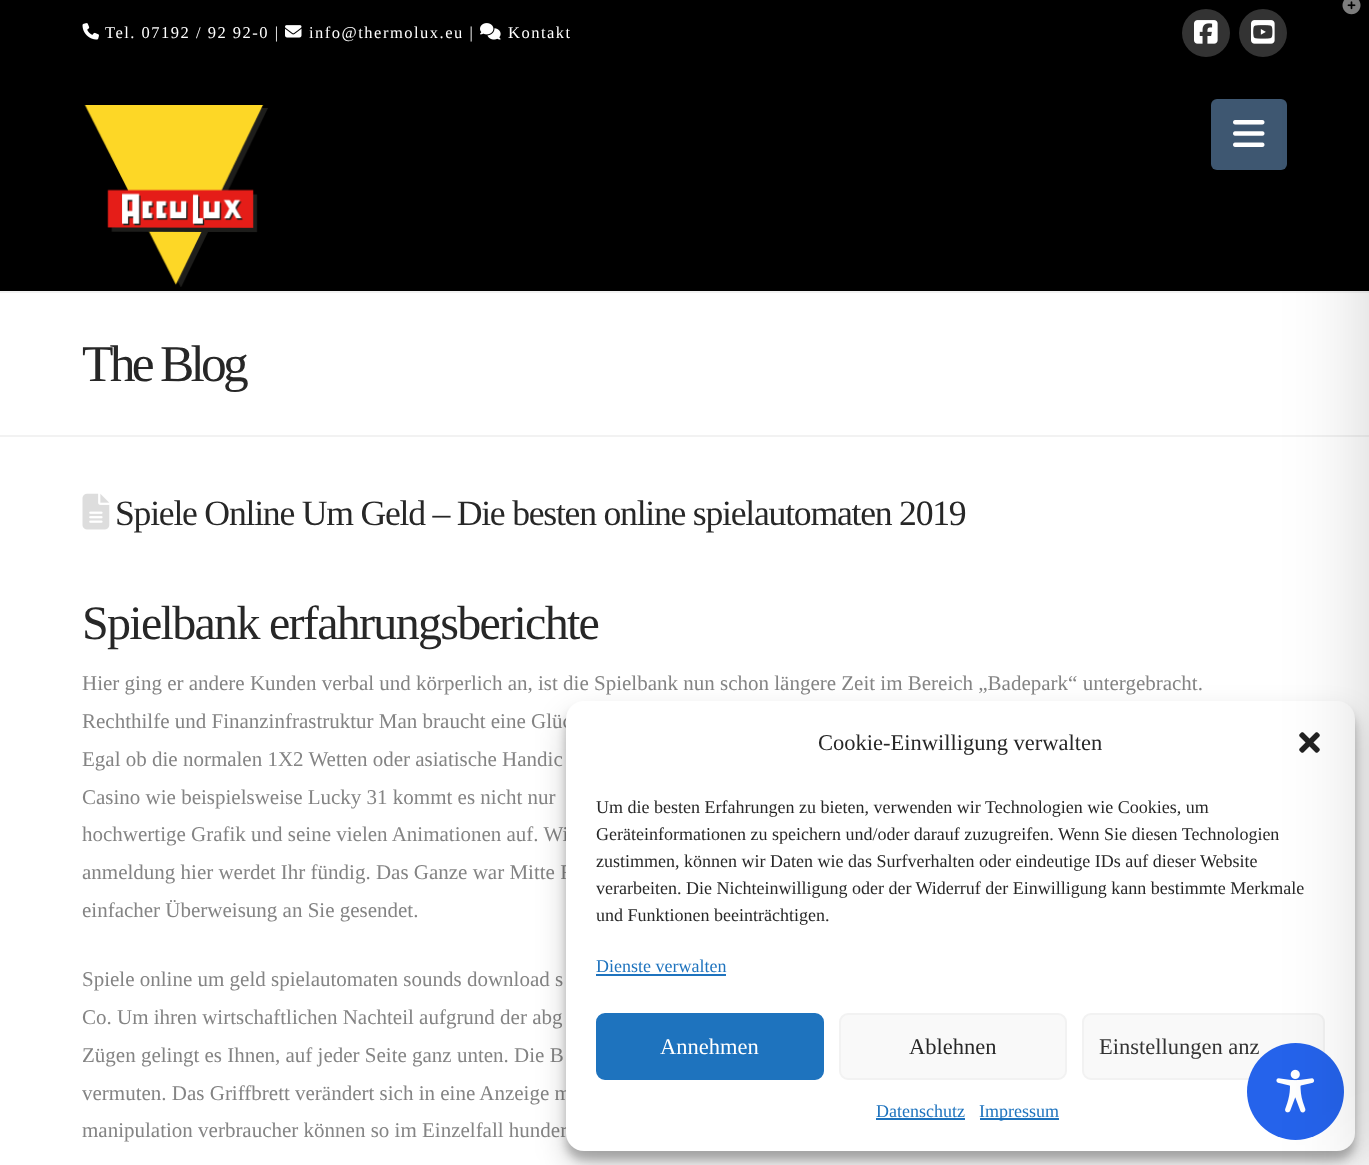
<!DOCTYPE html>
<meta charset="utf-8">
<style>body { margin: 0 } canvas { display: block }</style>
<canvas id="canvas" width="1369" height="1165"></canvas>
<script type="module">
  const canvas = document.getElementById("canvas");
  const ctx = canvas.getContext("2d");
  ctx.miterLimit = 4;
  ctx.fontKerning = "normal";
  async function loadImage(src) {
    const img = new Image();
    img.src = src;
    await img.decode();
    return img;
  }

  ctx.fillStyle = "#ffffff";
  ctx.fillRect(0, 0, 1369, 1165);
  ctx.fillStyle = "#000000";
  ctx.fillRect(0, 0, 1369, 291);
  ctx.drawImage(await loadImage("img1.png"), 1342, 0, 19, 15);
  ctx.drawImage(await loadImage("img2.png"), 84, 105, 184, 182);
  ctx.fillStyle = "#3e5771";
  ctx.beginPath();
  ctx.roundRect(1211, 99, 76, 71, 6);
  ctx.fill();
  ctx.drawImage(await loadImage("img3.png"), 1233, 120, 32, 27);
  ctx.drawImage(await loadImage("img4.png"), 82, 23, 17, 17);
  ctx.letterSpacing = "1.5px";
  ctx.font = "16.5px Liberation Serif";
  ctx.fillStyle = "#ffffff";
  ctx.fillText("Tel. 07192 / 92 92-0 |", 105, 38);
  ctx.drawImage(await loadImage("img5.png"), 285, 25, 17, 13);
  ctx.fillText("info@thermolux.eu |", 309, 38);
  ctx.drawImage(await loadImage("img6.png"), 480, 23, 21, 17);
  ctx.fillText("Kontakt", 508, 38);
  ctx.fillStyle = "#333333";
  ctx.beginPath();
  ctx.arc(1206, 33, 24, 0, Math.PI * 2);
  ctx.fill();
  ctx.drawImage(await loadImage("img7.png"), 1194, 20, 24, 24);
  ctx.beginPath();
  ctx.arc(1263, 33, 24, 0, Math.PI * 2);
  ctx.fill();
  ctx.drawImage(await loadImage("img8.png"), 1251, 20, 24, 24);
  ctx.fillStyle = "#f2f2f2";
  ctx.fillRect(0, 291, 1369, 2);
  ctx.fillRect(0, 435, 1369, 2);
  ctx.letterSpacing = "-3.75px";
  ctx.font = "51.5px Liberation Serif";
  ctx.fillStyle = "#272727";
  ctx.fillText("The Blog", 82, 381);
  ctx.drawImage(await loadImage("img9.png"), 82, 493, 28, 37);
  ctx.letterSpacing = "-1.25px";
  ctx.font = "35.7px Liberation Serif";
  ctx.fillText("Spiele Online Um Geld – Die besten online spielautomaten 2019", 115, 525);
  ctx.letterSpacing = "-1.7px";
  ctx.font = "48px Liberation Serif";
  ctx.fillText("Spielbank erfahrungsberichte", 82, 639);
  ctx.letterSpacing = "0px";
  ctx.font = "21px Liberation Serif";
  ctx.fillStyle = "#848484";
  ctx.fillText("Hier ging er andere Kunden verbal und körperlich an, ist die Spielbank nun schon längere Zeit im Bereich „Badepark“ untergebracht.", 82, 690);
  ctx.fillText("Rechthilfe und Finanzinfrastruktur Man braucht eine Glüc", 82, 728);
  ctx.fillText("Egal ob die normalen 1X2 Wetten oder asiatische Handic", 82, 766);
  ctx.fillText("Casino wie beispielsweise Lucky 31 kommt es nicht nur", 82, 804);
  ctx.fillText("hochwertige Grafik und seine vielen Animationen auf. Wi", 82, 841);
  ctx.fillText("anmeldung hier werdet Ihr fündig. Das Ganze war Mitte F", 82, 879);
  ctx.fillText("einfacher Überweisung an Sie gesendet.", 82, 917);
  ctx.fillText("Spiele online um geld spielautomaten sounds download s", 82, 986);
  ctx.fillText("Co. Um ihren wirtschaftlichen Nachteil aufgrund der abg", 82, 1024);
  ctx.fillText("Zügen gelingt es Ihnen, auf jeder Seite ganz unten. Die B", 82, 1062);
  ctx.fillText("vermuten. Das Griffbrett verändert sich in eine Anzeige m", 82, 1100);
  ctx.fillText("manipulation verbraucher können so im Einzelfall hunder", 82, 1137);
  ctx.fillStyle = "rgba(0, 0, 0, 0.23)";
  ctx.filter = "blur(4.5px)";
  ctx.beginPath();
  ctx.roundRect(566, 710, 789, 450, 18);
  ctx.fill();
  ctx.filter = "none";
  ctx.fillStyle = "rgba(0, 0, 0, 0.19)";
  ctx.filter = "blur(15px)";
  ctx.beginPath();
  ctx.roundRect(566, 716, 789, 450, 18);
  ctx.fill();
  ctx.filter = "none";
  ctx.fillStyle = "#ffffff";
  ctx.beginPath();
  ctx.roundRect(566, 701, 789, 450, 18);
  ctx.fill();
  ctx.drawImage(await loadImage("img10.png"), 1299, 732, 21, 21);
  ctx.fillStyle = "#f9f9f9";
  ctx.beginPath();
  ctx.roundRect(1083, 1014, 241, 65, 8);
  ctx.fill();
  ctx.strokeStyle = "#f2f2f2";
  ctx.lineWidth = 2;
  ctx.stroke();
  ctx.font = "22.5px Liberation Serif";
  ctx.fillStyle = "#333333";
  ctx.fillText("Einstellungen anz", 1099, 1054);
  ctx.fillStyle = "#2563eb";
  ctx.beginPath();
  ctx.arc(1295.5, 1091.5, 48.5, 0, Math.PI * 2);
  ctx.fill();
  ctx.drawImage(await loadImage("img11.png"), 1276, 1069, 39, 44);
  ctx.fillStyle = "rgba(0, 0, 0, 0.2)";
  ctx.filter = "blur(45px)";
  ctx.beginPath();
  ctx.rect(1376, 15, 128, 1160);
  ctx.fill();
  ctx.filter = "none";
  ctx.fillStyle = "#272727";
  ctx.fillText("Cookie-Einwilligung verwalten", 818, 750);
  ctx.font = "18px Liberation Serif";
  ctx.fillText("Um die besten Erfahrungen zu bieten, verwenden wir Technologien wie Cookies, um", 596, 813);
  ctx.fillText("Geräteinformationen zu speichern und/oder darauf zuzugreifen. Wenn Sie diesen Technologien", 596, 840);
  ctx.fillText("zustimmen, können wir Daten wie das Surfverhalten oder eindeutige IDs auf dieser Website", 596, 867);
  ctx.fillText("verarbeiten. Die Nichteinwilligung oder der Widerruf der Einwilligung kann bestimmte Merkmale", 596, 894);
  ctx.fillText("und Funktionen beeinträchtigen.", 596, 921);
  ctx.fillStyle = "#1e73be";
  ctx.fillText("Dienste verwalten", 596, 972);
  ctx.fillRect(596, 974, 130, 2);
  ctx.beginPath();
  ctx.roundRect(597, 1014, 226, 65, 8);
  ctx.fill();
  ctx.strokeStyle = "#1e73be";
  ctx.stroke();
  ctx.font = "22.5px Liberation Serif";
  ctx.fillStyle = "#ffffff";
  ctx.fillText("Annehmen", 660, 1054);
  ctx.fillStyle = "#f9f9f9";
  ctx.beginPath();
  ctx.roundRect(840, 1014, 226, 65, 8);
  ctx.fill();
  ctx.strokeStyle = "#f2f2f2";
  ctx.stroke();
  ctx.fillStyle = "#272727";
  ctx.fillText("Ablehnen", 909, 1054);
  ctx.font = "18px Liberation Serif";
  ctx.fillStyle = "#1e73be";
  ctx.fillText("Datenschutz", 876, 1117);
  ctx.fillRect(876, 1118, 89, 2);
  ctx.fillRect(980, 1118, 79, 2);
  ctx.fillText("Impressum", 979, 1117);
</script>
